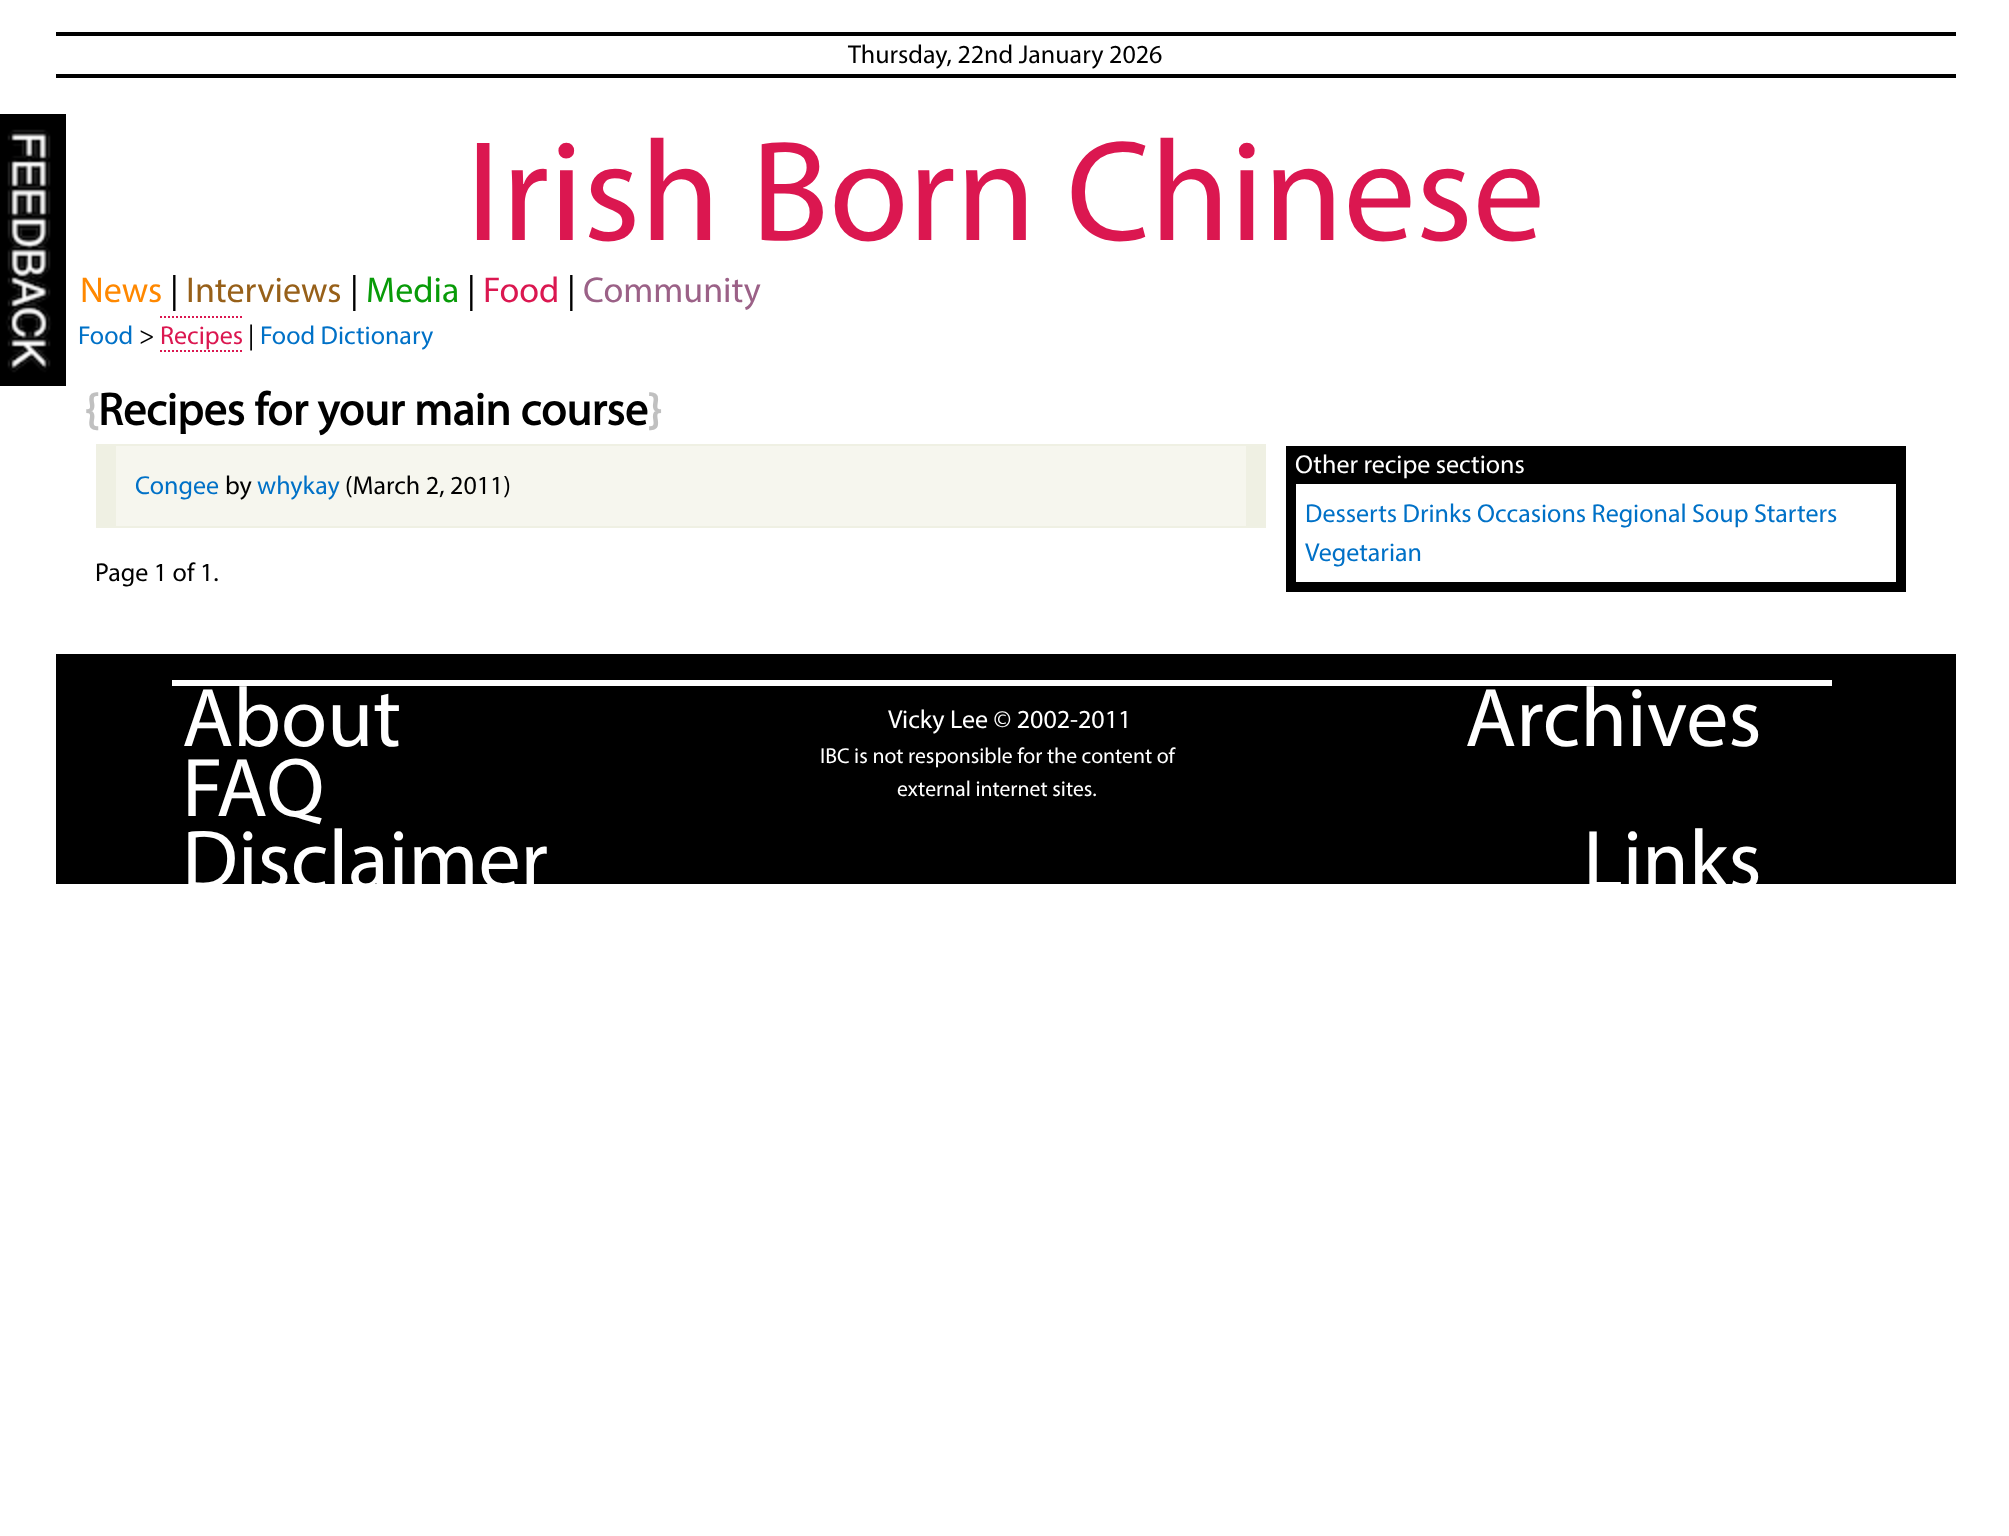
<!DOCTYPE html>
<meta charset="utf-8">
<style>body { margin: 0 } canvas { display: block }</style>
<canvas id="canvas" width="2009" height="1536"></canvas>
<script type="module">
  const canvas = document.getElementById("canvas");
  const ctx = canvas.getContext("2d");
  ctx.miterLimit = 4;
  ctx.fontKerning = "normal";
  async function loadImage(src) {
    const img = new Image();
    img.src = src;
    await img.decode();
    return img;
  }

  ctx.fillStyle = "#ffffff";
  ctx.fillRect(0, 0, 2009, 1536);
  ctx.fillStyle = "#000000";
  ctx.fillRect(56, 32, 1900, 4);
  ctx.fillRect(56, 74, 1900, 4);
  ctx.font = "26px Myriad";
  ctx.fillText("Thursday, 22nd January 2026", 848, 63);
  ctx.drawImage(await loadImage("img1.png"), 0, 114, 66, 272);
  ctx.font = "144px Myriad";
  ctx.fillStyle = "#db1750";
  ctx.fillText("Irish Born Chinese", 466, 240);
  ctx.font = "36px Myriad";
  ctx.fillStyle = "#ff8800";
  ctx.fillText("News", 80, 302);
  ctx.fillStyle = "#000000";
  ctx.fillText("|", 170, 302);
  ctx.fillStyle = "#976019";
  ctx.fillText("Interviews", 186, 302);
  ctx.fillStyle = "#000000";
  ctx.fillText("|", 350, 302);
  ctx.fillStyle = "#089b08";
  ctx.fillText("Media", 366, 302);
  ctx.fillStyle = "#000000";
  ctx.fillText("|", 467, 302);
  ctx.fillStyle = "#db1750";
  ctx.fillText("Food", 483, 302);
  ctx.fillStyle = "#000000";
  ctx.fillText("|", 567, 302);
  ctx.fillStyle = "#9b6187";
  ctx.fillText("Community", 583, 302);
  ctx.font = "26px Myriad";
  ctx.fillStyle = "#0071c7";
  ctx.fillText("Food", 78, 344);
  ctx.fillStyle = "#000000";
  ctx.fillText(">", 139, 344);
  ctx.fillStyle = "#db1750";
  ctx.fillText("Recipes", 160, 344);
  ctx.beginPath();
  ctx.moveTo(160, 317);
  ctx.lineTo(242, 317);
  ctx.strokeStyle = "#db1750";
  ctx.lineWidth = 2;
  ctx.setLineDash([2, 2]);
  ctx.stroke();
  ctx.beginPath();
  ctx.moveTo(160, 351);
  ctx.lineTo(242, 351);
  ctx.stroke();
  ctx.fillStyle = "#000000";
  ctx.fillText("|", 248, 344);
  ctx.fillStyle = "#0071c7";
  ctx.fillText("Food Dictionary", 260, 344);
  ctx.font = "bold 46px Myriad";
  ctx.fillStyle = "#c0c0c0";
  ctx.fillText("{", 85, 425);
  ctx.fillStyle = "#000000";
  ctx.fillText("Recipes for your main course", 98, 425);
  ctx.fillStyle = "#c0c0c0";
  ctx.fillText("}", 648, 425);
  ctx.fillStyle = "#f6f6ee";
  ctx.fillRect(116, 446, 1130, 80);
  ctx.fillStyle = "#eff0e3";
  ctx.fillRect(116, 444, 1130, 2);
  ctx.fillRect(1246, 444, 20, 82);
  ctx.fillRect(116, 526, 1150, 2);
  ctx.fillRect(96, 444, 20, 84);
  ctx.font = "26px Myriad";
  ctx.fillStyle = "#0071c7";
  ctx.fillText("Congee", 135, 494);
  ctx.fillStyle = "#000000";
  ctx.fillText("by", 225, 494);
  ctx.fillStyle = "#0071c7";
  ctx.fillText("whykay", 257, 494);
  ctx.fillStyle = "#000000";
  ctx.fillText("(March 2, 2011)", 345, 494);
  ctx.fillText("Page 1 of 1.", 95, 581);
  ctx.fillRect(1286, 446, 620, 146);
  ctx.fillStyle = "#ffffff";
  ctx.fillText("Other recipe sections", 1295, 473);
  ctx.fillRect(1296, 484, 600, 98);
  ctx.fillStyle = "#0071c7";
  ctx.fillText("Desserts Drinks Occasions Regional Soup Starters", 1305, 522);
  ctx.fillText("Vegetarian", 1305, 561);
  ctx.fillStyle = "#000000";
  ctx.fillRect(56, 654, 1900, 230);
  ctx.fillStyle = "#ffffff";
  ctx.fillRect(172, 680, 1660, 6);
  ctx.font = "84px Myriad";
  ctx.fillText("About", 182, 746);
  ctx.fillText("FAQ", 182, 816);
  ctx.fillText("Disclaimer", 182, 888);
  ctx.font = "26px Myriad";
  ctx.fillText("Vicky Lee © 2002-2011", 888, 728);
  ctx.font = "21.7px Myriad";
  ctx.fillText("IBC is not responsible for the content of", 820, 763);
  ctx.fillText("external internet sites.", 897, 796);
  ctx.font = "84px Myriad";
  ctx.fillText("Archives", 1465, 746);
  ctx.fillText("Links", 1583, 888);
</script>
